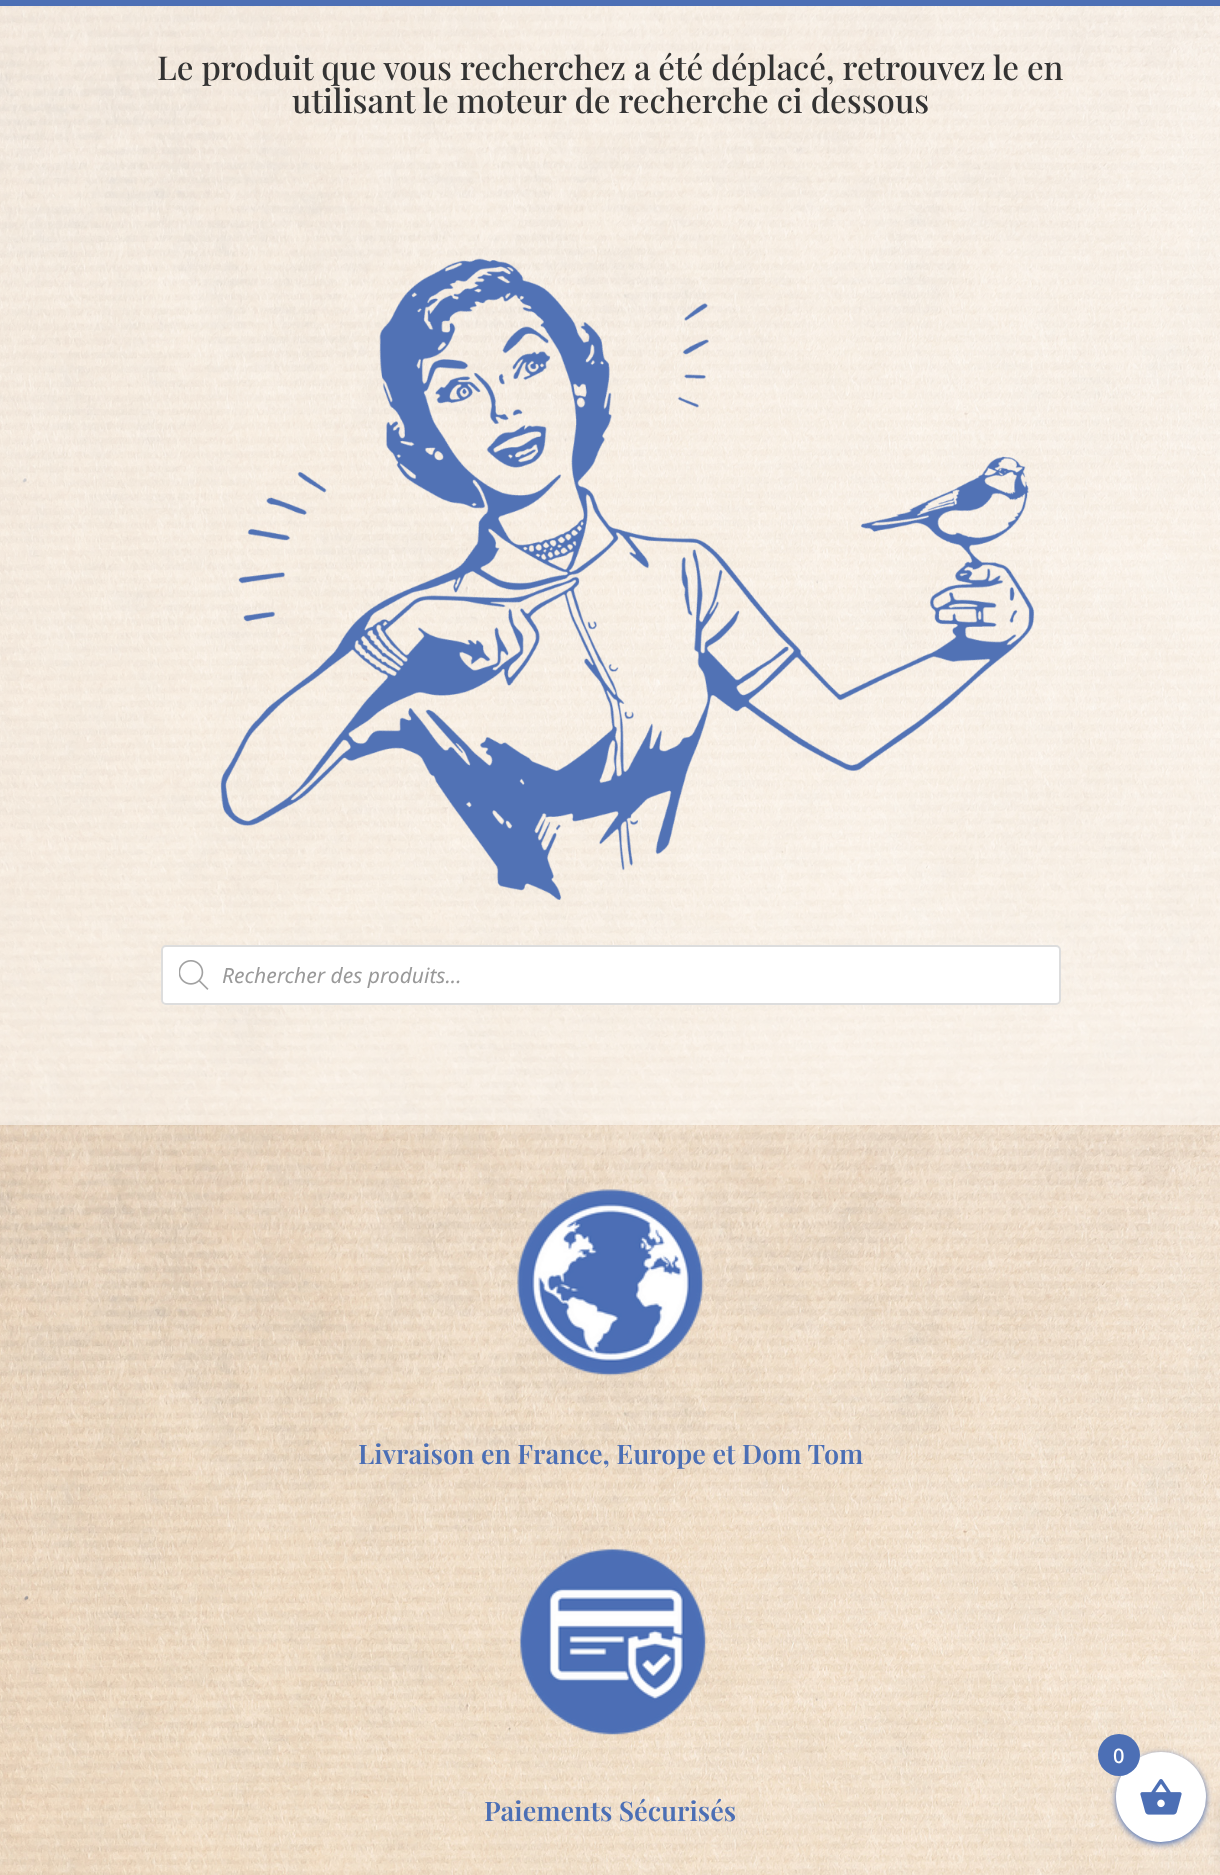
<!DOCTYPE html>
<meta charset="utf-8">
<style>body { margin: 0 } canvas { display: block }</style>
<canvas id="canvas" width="1220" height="1875"></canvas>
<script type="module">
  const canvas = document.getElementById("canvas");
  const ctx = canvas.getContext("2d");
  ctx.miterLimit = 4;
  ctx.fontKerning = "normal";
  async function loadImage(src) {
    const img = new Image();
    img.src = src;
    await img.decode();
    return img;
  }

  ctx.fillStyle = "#4c6fb5";
  ctx.fillRect(0, 0, 1220, 1875);
  ctx.drawImage(await loadImage("img1.png"), 0, 6, 1220, 1119);
  ctx.font = "500 33px Playfair Display";
  ctx.fillStyle = "#333333";
  ctx.fillText("Le produit que vous recherchez a été déplacé, retrouvez le en", 157, 80);
  ctx.fillText("utilisant le moteur de recherche ci dessous", 292, 113);
  ctx.drawImage(await loadImage("img2.png"), 220, 258, 815, 642);
  ctx.fillStyle = "#ffffff";
  ctx.beginPath();
  ctx.roundRect(162, 946, 898, 58, 4);
  ctx.fill();
  ctx.strokeStyle = "#dddddd";
  ctx.lineWidth = 2;
  ctx.stroke();
  ctx.drawImage(await loadImage("img3.png"), 179, 960, 30, 30);
  ctx.font = "italic 21px Noto Sans";
  ctx.fillStyle = "#999999";
  ctx.fillText("Rechercher des produits...", 222, 983);
  ctx.drawImage(await loadImage("img4.png"), 0, 1125, 1220, 750);
  ctx.drawImage(await loadImage("img5.png"), 517, 1189, 187, 187);
  ctx.font = "600 27px Playfair Display";
  ctx.fillStyle = "#4c6fb5";
  ctx.fillText("Livraison en France, Europe et Dom Tom", 358, 1464);
  ctx.drawImage(await loadImage("img6.png"), 519, 1548, 188, 187);
  ctx.fillText("Paiements Sécurisés", 484, 1821);
  ctx.filter = "blur(3px)";
  ctx.beginPath();
  ctx.roundRect(1116, 1754, 90, 90, 45);
  ctx.fill();
  ctx.filter = "none";
  ctx.fillStyle = "rgba(0, 0, 0, 0.1)";
  ctx.filter = "blur(7.5px)";
  ctx.beginPath();
  ctx.rect(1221, 1797, 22, 71);
  ctx.fill();
  ctx.filter = "none";
  ctx.fillStyle = "#ffffff";
  ctx.beginPath();
  ctx.arc(1161, 1797, 45, 0, Math.PI * 2);
  ctx.fill();
  ctx.fillStyle = "#4c6fb5";
  ctx.beginPath();
  ctx.arc(1119, 1755, 21, 0, Math.PI * 2);
  ctx.fill();
  ctx.font = "500 20px Noto Sans";
  ctx.fillStyle = "#ffffff";
  ctx.fillText("0", 1113, 1763);
  ctx.drawImage(await loadImage("img7.png"), 1140, 1779, 42, 36);
</script>
